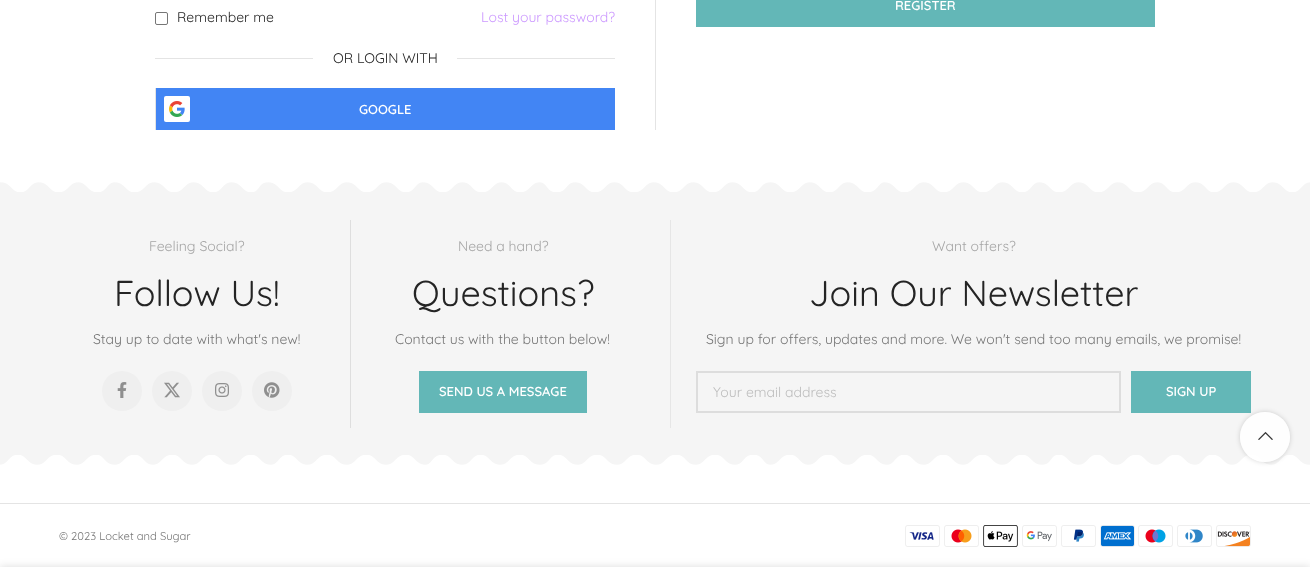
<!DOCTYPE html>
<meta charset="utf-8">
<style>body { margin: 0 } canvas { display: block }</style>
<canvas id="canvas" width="1310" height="567"></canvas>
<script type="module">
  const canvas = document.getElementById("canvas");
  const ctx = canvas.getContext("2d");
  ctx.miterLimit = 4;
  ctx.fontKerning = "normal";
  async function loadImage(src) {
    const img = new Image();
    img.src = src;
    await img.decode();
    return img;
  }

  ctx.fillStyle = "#ffffff";
  ctx.fillRect(0, 0, 1310, 567);
  ctx.fillStyle = "#e4e4e4";
  ctx.fillRect(655, 0, 1, 130);
  ctx.fillStyle = "#63b7b7";
  ctx.fillRect(696, 0, 459, 27);
  ctx.font = "600 13px Quicksand";
  ctx.fillStyle = "#ffffff";
  ctx.fillText("REGISTER", 895, 10);
  ctx.beginPath();
  ctx.roundRect(155.5, 12.5, 12, 12, 1.5);
  ctx.strokeStyle = "#767676";
  ctx.stroke();
  ctx.font = "14px Quicksand";
  ctx.fillStyle = "#242424";
  ctx.fillText("Remember me", 177, 22);
  ctx.fillStyle = "#cc99ff";
  ctx.fillText("Lost your password?", 481, 22);
  ctx.fillStyle = "#e4e4e4";
  ctx.fillRect(155, 58, 158, 1);
  ctx.fillStyle = "#242424";
  ctx.fillText("OR LOGIN WITH", 333, 63);
  ctx.fillStyle = "#e4e4e4";
  ctx.fillRect(457, 58, 158, 1);
  ctx.fillRect(155, 88, 1, 42);
  ctx.fillStyle = "#4285f4";
  ctx.fillRect(156, 88, 459, 42);
  ctx.fillStyle = "#ffffff";
  ctx.beginPath();
  ctx.roundRect(164, 96, 26, 26, 2);
  ctx.fill();
  ctx.drawImage(await loadImage("img1.png"), 169, 101, 16, 16);
  ctx.font = "600 13px Quicksand";
  ctx.fillText("GOOGLE", 359, 114);
  ctx.fillStyle = "#f5f5f5";
  ctx.fillRect(0, 182, 1310, 283);
  ctx.drawImage(await loadImage("img2.png"), 0, 170, 1310, 22);
  ctx.font = "14px Quicksand";
  ctx.fillStyle = "#a5a5a5";
  ctx.fillText("Feeling Social?", 149, 251);
  ctx.font = "36px Quicksand";
  ctx.fillStyle = "#242424";
  ctx.fillText("Follow Us!", 114, 306);
  ctx.font = "14px Quicksand";
  ctx.fillStyle = "#767676";
  ctx.fillText("Stay up to date with what's new!", 93, 344);
  ctx.fillStyle = "#efefef";
  ctx.beginPath();
  ctx.arc(122, 391, 20, 0, Math.PI * 2);
  ctx.fill();
  ctx.drawImage(await loadImage("img3.png"), 117, 382, 10, 16);
  ctx.beginPath();
  ctx.arc(172, 391, 20, 0, Math.PI * 2);
  ctx.fill();
  ctx.drawImage(await loadImage("img4.png"), 164, 382, 16, 16);
  ctx.beginPath();
  ctx.arc(222, 391, 20, 0, Math.PI * 2);
  ctx.fill();
  ctx.drawImage(await loadImage("img5.png"), 215, 383, 14, 14);
  ctx.beginPath();
  ctx.arc(272, 391, 20, 0, Math.PI * 2);
  ctx.fill();
  ctx.drawImage(await loadImage("img6.png"), 264, 382, 16, 16);
  ctx.fillStyle = "#dedede";
  ctx.fillRect(350, 220, 1, 208);
  ctx.fillStyle = "#a5a5a5";
  ctx.fillText("Need a hand?", 458, 251);
  ctx.font = "36px Quicksand";
  ctx.fillStyle = "#242424";
  ctx.fillText("Questions?", 412, 306);
  ctx.font = "14px Quicksand";
  ctx.fillStyle = "#767676";
  ctx.fillText("Contact us with the button below!", 395, 344);
  ctx.fillStyle = "#63b7b7";
  ctx.fillRect(419, 371, 168, 42);
  ctx.font = "600 13px Quicksand";
  ctx.fillStyle = "#ffffff";
  ctx.fillText("SEND US A MESSAGE", 439, 396);
  ctx.fillStyle = "#e6e6e6";
  ctx.fillRect(670, 220, 1, 208);
  ctx.font = "14px Quicksand";
  ctx.fillStyle = "#a5a5a5";
  ctx.fillText("Want offers?", 932, 251);
  ctx.font = "36px Quicksand";
  ctx.fillStyle = "#242424";
  ctx.fillText("Join Our Newsletter", 809, 306);
  ctx.font = "14px Quicksand";
  ctx.fillStyle = "#767676";
  ctx.fillText("Sign up for offers, updates and more. We won't send too many emails, we promise!", 706, 344);
  ctx.strokeStyle = "#dddddd";
  ctx.lineWidth = 2;
  ctx.strokeRect(697, 372, 423, 40);
  ctx.fillStyle = "#bdbdbd";
  ctx.fillText("Your email address", 713, 397);
  ctx.fillStyle = "#63b7b7";
  ctx.fillRect(1131, 371, 120, 42);
  ctx.font = "600 13px Quicksand";
  ctx.fillStyle = "#ffffff";
  ctx.fillText("SIGN UP", 1166, 396);
  ctx.drawImage(await loadImage("img7.png"), 0, 455, 1310, 23);
  ctx.fillStyle = "#e4e4e4";
  ctx.fillRect(0, 503, 1310, 1);
  ctx.font = "11.25px Quicksand";
  ctx.fillStyle = "#767676";
  ctx.fillText("© 2023 Locket and Sugar", 59, 540);
  ctx.drawImage(await loadImage("img8.png"), 905, 525, 35, 22);
  ctx.drawImage(await loadImage("img9.png"), 944, 525, 35, 22);
  ctx.drawImage(await loadImage("img10.png"), 983, 525, 35, 22);
  ctx.drawImage(await loadImage("img11.png"), 1022, 525, 35, 22);
  ctx.drawImage(await loadImage("img12.png"), 1061, 525, 35, 22);
  ctx.drawImage(await loadImage("img13.png"), 1100, 525, 35, 22);
  ctx.drawImage(await loadImage("img14.png"), 1138, 525, 35, 22);
  ctx.drawImage(await loadImage("img15.png"), 1177, 525, 35, 22);
  ctx.drawImage(await loadImage("img16.png"), 1216, 525, 35, 22);
  ctx.save();
  ctx.beginPath();
  ctx.moveTo(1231, 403);
  ctx.lineTo(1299, 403);
  ctx.lineTo(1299, 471);
  ctx.lineTo(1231, 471);
  ctx.closePath();
  ctx.moveTo(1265, 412);
  ctx.bezierCurveTo(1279, 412, 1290, 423, 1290, 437);
  ctx.bezierCurveTo(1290, 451, 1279, 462, 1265, 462);
  ctx.bezierCurveTo(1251, 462, 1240, 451, 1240, 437);
  ctx.bezierCurveTo(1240, 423, 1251, 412, 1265, 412);
  ctx.closePath();
  ctx.clip("evenodd");
  ctx.fillStyle = "rgba(0, 0, 0, 0.17)";
  ctx.filter = "blur(2.5px)";
  ctx.beginPath();
  ctx.roundRect(1240, 412, 50, 50, 25);
  ctx.fill();
  ctx.filter = "none";
  ctx.restore();
  ctx.fillStyle = "rgba(255, 255, 255, 0.9)";
  ctx.beginPath();
  ctx.arc(1265, 437, 25, 0, Math.PI * 2);
  ctx.fill();
  ctx.drawImage(await loadImage("img17.png"), 1258, 431, 15, 9);
  ctx.fillStyle = "rgba(0, 0, 0, 0.14)";
  ctx.filter = "blur(4.5px)";
  ctx.beginPath();
  ctx.rect(0, 567, 1310, 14);
  ctx.fill();
  ctx.filter = "none";
</script>
